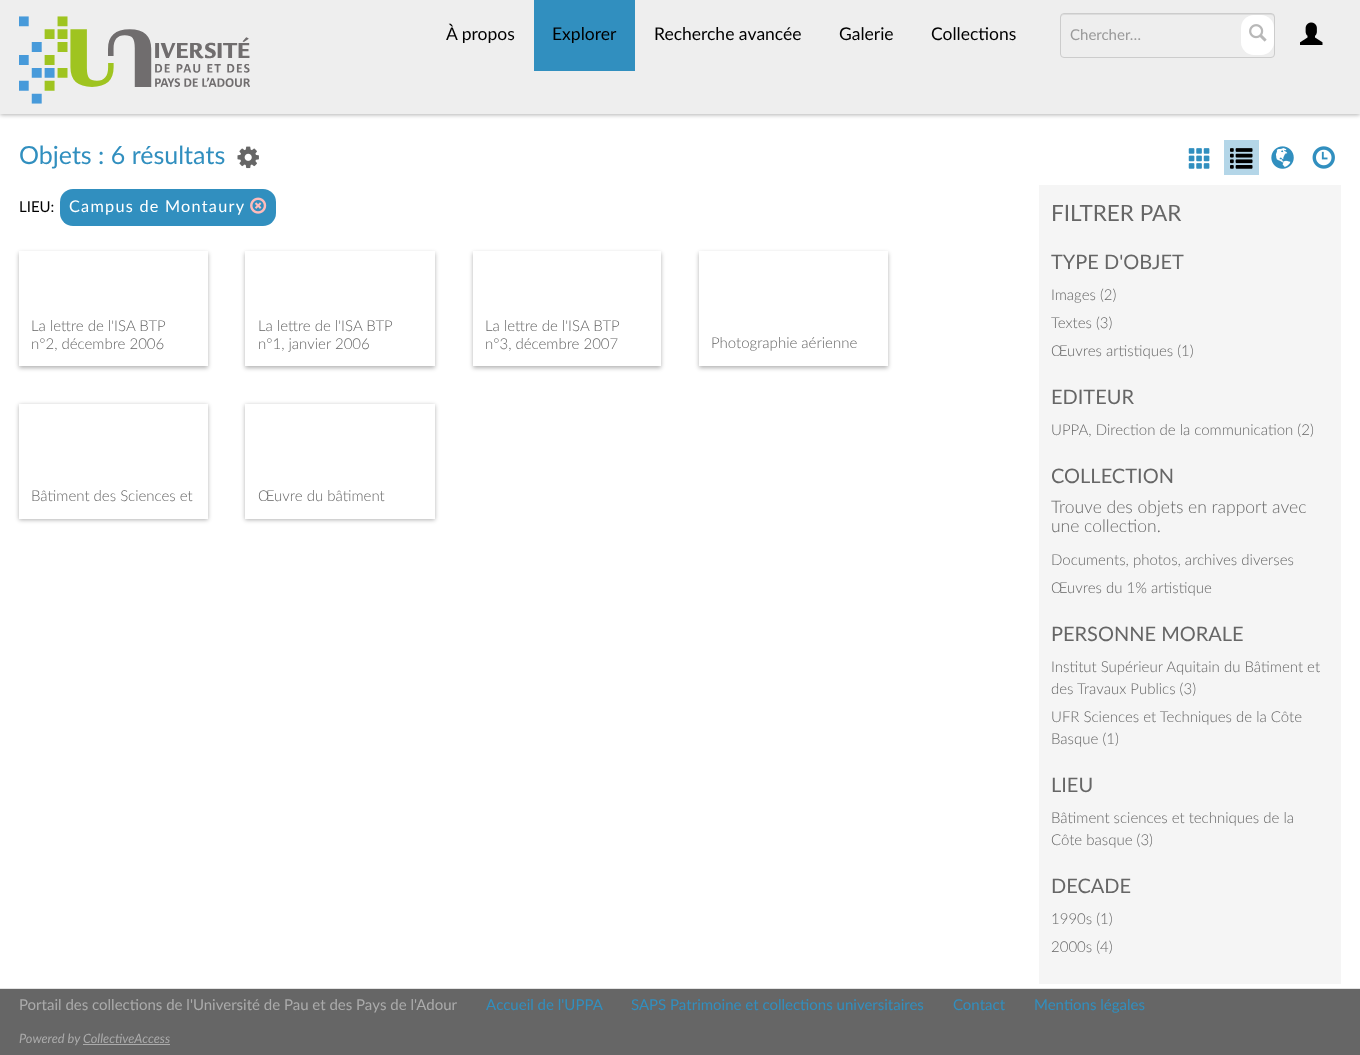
<!DOCTYPE html>
<meta charset="utf-8">
<style>body { margin: 0 } canvas { display: block }</style>
<canvas id="canvas" width="1360" height="1055"></canvas>
<script type="module">
  const canvas = document.getElementById("canvas");
  const ctx = canvas.getContext("2d");
  ctx.miterLimit = 4;
  ctx.fontKerning = "normal";
  async function loadImage(src) {
    const img = new Image();
    img.src = src;
    await img.decode();
    return img;
  }

  ctx.fillStyle = "#ffffff";
  ctx.fillRect(0, 0, 1360, 1055);
  ctx.fillStyle = "rgba(0, 0, 0, 0.3)";
  ctx.filter = "blur(2px)";
  ctx.beginPath();
  ctx.rect(0, 1, 1360, 114);
  ctx.fill();
  ctx.filter = "none";
  ctx.fillStyle = "#eeeeee";
  ctx.fillRect(0, 0, 1360, 114);
  ctx.drawImage(await loadImage("img1.png"), 19, 16, 231, 88);
  ctx.font = "17.5px Lato";
  ctx.fillStyle = "#000000";
  ctx.fillText("À propos", 446, 40);
  ctx.fillStyle = "#318fbf";
  ctx.fillRect(534, 0, 101, 71);
  ctx.fillStyle = "#000000";
  ctx.fillText("Explorer", 552, 40);
  ctx.fillText("Recherche avancée", 654, 40);
  ctx.fillText("Galerie", 839, 40);
  ctx.fillText("Collections", 931, 40);
  ctx.fillStyle = "#dcdcdc";
  ctx.beginPath();
  ctx.moveTo(1064, 15);
  ctx.lineTo(1271, 15);
  ctx.bezierCurveTo(1273, 15, 1274, 16, 1274, 18);
  ctx.lineTo(1274, 16);
  ctx.bezierCurveTo(1274, 15, 1273, 14, 1272, 14);
  ctx.lineTo(1064, 14);
  ctx.bezierCurveTo(1062, 14, 1061, 15, 1061, 16);
  ctx.lineTo(1061, 18);
  ctx.bezierCurveTo(1061, 16, 1062, 15, 1064, 15);
  ctx.closePath();
  ctx.fill();
  ctx.beginPath();
  ctx.roundRect(1060.5, 13.5, 214, 44, 3.5);
  ctx.strokeStyle = "#cccccc";
  ctx.stroke();
  ctx.font = "15px Lato";
  ctx.fillStyle = "#999999";
  ctx.fillText("Chercher…", 1070, 40);
  ctx.fillStyle = "#ffffff";
  ctx.beginPath();
  ctx.roundRect(1241, 15, 33, 40, 13);
  ctx.fill();
  ctx.drawImage(await loadImage("img2.png"), 1249, 24, 18, 18);
  ctx.drawImage(await loadImage("img3.png"), 1300, 22, 23, 23);
  ctx.font = "25px Lato";
  ctx.fillStyle = "#318fbf";
  ctx.fillText("Objets : 6 résultats", 19, 164);
  ctx.drawImage(await loadImage("img4.png"), 237, 146, 22, 23);
  ctx.font = "15px Lato";
  ctx.fillStyle = "#000000";
  ctx.fillText("LIEU:", 19, 212);
  ctx.fillStyle = "#318fbf";
  ctx.beginPath();
  ctx.roundRect(60, 189, 216, 37, 13);
  ctx.fill();
  ctx.letterSpacing = "1.25px";
  ctx.font = "16.25px Lato";
  ctx.fillStyle = "#ffffff";
  ctx.fillText("Campus de Montaury", 69, 212);
  ctx.drawImage(await loadImage("img5.png"), 250, 197, 17, 17);
  ctx.fillStyle = "rgba(0, 0, 0, 0.3)";
  ctx.filter = "blur(2px)";
  ctx.beginPath();
  ctx.rect(19, 253, 189, 115);
  ctx.fill();
  ctx.filter = "none";
  ctx.fillStyle = "#ffffff";
  ctx.fillRect(19, 251, 189, 115);
  ctx.letterSpacing = "0px";
  ctx.font = "300 15px Lato";
  ctx.fillStyle = "#666666";
  ctx.fillText("La lettre de l'ISA BTP", 31, 331);
  ctx.fillText("n°2, décembre 2006", 31, 349);
  ctx.fillStyle = "rgba(0, 0, 0, 0.3)";
  ctx.filter = "blur(2px)";
  ctx.beginPath();
  ctx.rect(245, 253, 190, 115);
  ctx.fill();
  ctx.filter = "none";
  ctx.fillStyle = "#ffffff";
  ctx.fillRect(245, 251, 190, 115);
  ctx.fillStyle = "#666666";
  ctx.fillText("La lettre de l'ISA BTP", 258, 331);
  ctx.fillText("n°1, janvier 2006", 258, 349);
  ctx.fillStyle = "rgba(0, 0, 0, 0.3)";
  ctx.filter = "blur(2px)";
  ctx.beginPath();
  ctx.rect(473, 253, 188, 115);
  ctx.fill();
  ctx.filter = "none";
  ctx.fillStyle = "#ffffff";
  ctx.fillRect(473, 251, 188, 115);
  ctx.fillStyle = "#666666";
  ctx.fillText("La lettre de l'ISA BTP", 485, 331);
  ctx.fillText("n°3, décembre 2007", 485, 349);
  ctx.fillStyle = "rgba(0, 0, 0, 0.3)";
  ctx.filter = "blur(2px)";
  ctx.beginPath();
  ctx.rect(699, 253, 189, 115);
  ctx.fill();
  ctx.filter = "none";
  ctx.fillStyle = "#ffffff";
  ctx.fillRect(699, 251, 189, 115);
  ctx.fillStyle = "#666666";
  ctx.fillText("Photographie aérienne", 711, 348);
  ctx.fillStyle = "rgba(0, 0, 0, 0.3)";
  ctx.filter = "blur(2px)";
  ctx.beginPath();
  ctx.rect(19, 405, 189, 115);
  ctx.fill();
  ctx.filter = "none";
  ctx.fillStyle = "#ffffff";
  ctx.fillRect(19, 404, 189, 115);
  ctx.fillStyle = "#666666";
  ctx.fillText("Bâtiment des Sciences et", 31, 501);
  ctx.fillStyle = "rgba(0, 0, 0, 0.3)";
  ctx.filter = "blur(2px)";
  ctx.beginPath();
  ctx.rect(245, 405, 190, 115);
  ctx.fill();
  ctx.filter = "none";
  ctx.fillStyle = "#ffffff";
  ctx.fillRect(245, 404, 190, 115);
  ctx.fillStyle = "#666666";
  ctx.fillText("Œuvre du bâtiment", 258, 501);
  ctx.drawImage(await loadImage("img6.png"), 1188, 148, 22, 21);
  ctx.fillStyle = "#b4d6e8";
  ctx.fillRect(1224, 140, 35, 35);
  ctx.drawImage(await loadImage("img7.png"), 1230, 148, 23, 21);
  ctx.drawImage(await loadImage("img8.png"), 1271, 146, 23, 23);
  ctx.drawImage(await loadImage("img9.png"), 1312, 146, 23, 23);
  ctx.fillStyle = "#f5f5f5";
  ctx.fillRect(1039, 185, 302, 799);
  ctx.font = "22.5px Lato";
  ctx.fillStyle = "#666666";
  ctx.fillText("FILTRER PAR", 1051, 221);
  ctx.font = "20px Lato";
  ctx.fillText("TYPE D'OBJET", 1051, 269);
  ctx.font = "300 15px Lato";
  ctx.fillText("Images (2)", 1051, 300);
  ctx.fillText("Textes (3)", 1051, 328);
  ctx.fillText("Œuvres artistiques (1)", 1051, 356);
  ctx.font = "20px Lato";
  ctx.fillText("EDITEUR", 1051, 404);
  ctx.font = "300 15px Lato";
  ctx.fillText("UPPA, Direction de la communication (2)", 1051, 435);
  ctx.font = "20px Lato";
  ctx.fillText("COLLECTION", 1051, 483);
  ctx.font = "300 17.5px Lato";
  ctx.fillText("Trouve des objets en rapport avec", 1051, 513);
  ctx.fillText("une collection.", 1051, 532);
  ctx.font = "300 15px Lato";
  ctx.fillText("Documents, photos, archives diverses", 1051, 565);
  ctx.fillText("Œuvres du 1% artistique", 1051, 593);
  ctx.font = "20px Lato";
  ctx.fillText("PERSONNE MORALE", 1051, 641);
  ctx.font = "300 15px Lato";
  ctx.fillText("Institut Supérieur Aquitain du Bâtiment et", 1051, 672);
  ctx.fillText("des Travaux Publics (3)", 1051, 694);
  ctx.fillText("UFR Sciences et Techniques de la Côte", 1051, 722);
  ctx.fillText("Basque (1)", 1051, 744);
  ctx.font = "20px Lato";
  ctx.fillText("LIEU", 1051, 792);
  ctx.font = "300 15px Lato";
  ctx.fillText("Bâtiment sciences et techniques de la", 1051, 823);
  ctx.fillText("Côte basque (3)", 1051, 845);
  ctx.font = "20px Lato";
  ctx.fillText("DECADE", 1051, 893);
  ctx.font = "300 15px Lato";
  ctx.fillText("1990s (1)", 1051, 924);
  ctx.fillText("2000s (4)", 1051, 952);
  ctx.fillRect(0, 989, 1360, 66);
  ctx.fillStyle = "#e3e3e3";
  ctx.fillRect(0, 988, 1360, 1);
  ctx.font = "15px Lato";
  ctx.fillStyle = "#ababab";
  ctx.fillText("Portail des collections de l'Université de Pau et des Pays de l'Adour", 19, 1010);
  ctx.fillStyle = "#318fbf";
  ctx.fillText("Accueil de l'UPPA", 486, 1010);
  ctx.fillText("SAPS Patrimoine et collections universitaires", 631, 1010);
  ctx.fillText("Contact", 953, 1010);
  ctx.fillText("Mentions légales", 1034, 1010);
  ctx.font = "italic 12.75px Lato";
  ctx.fillStyle = "#ababab";
  ctx.fillText("Powered by CollectiveAccess", 19, 1043);
  ctx.fillRect(83, 1044, 87, 1);
</script>
